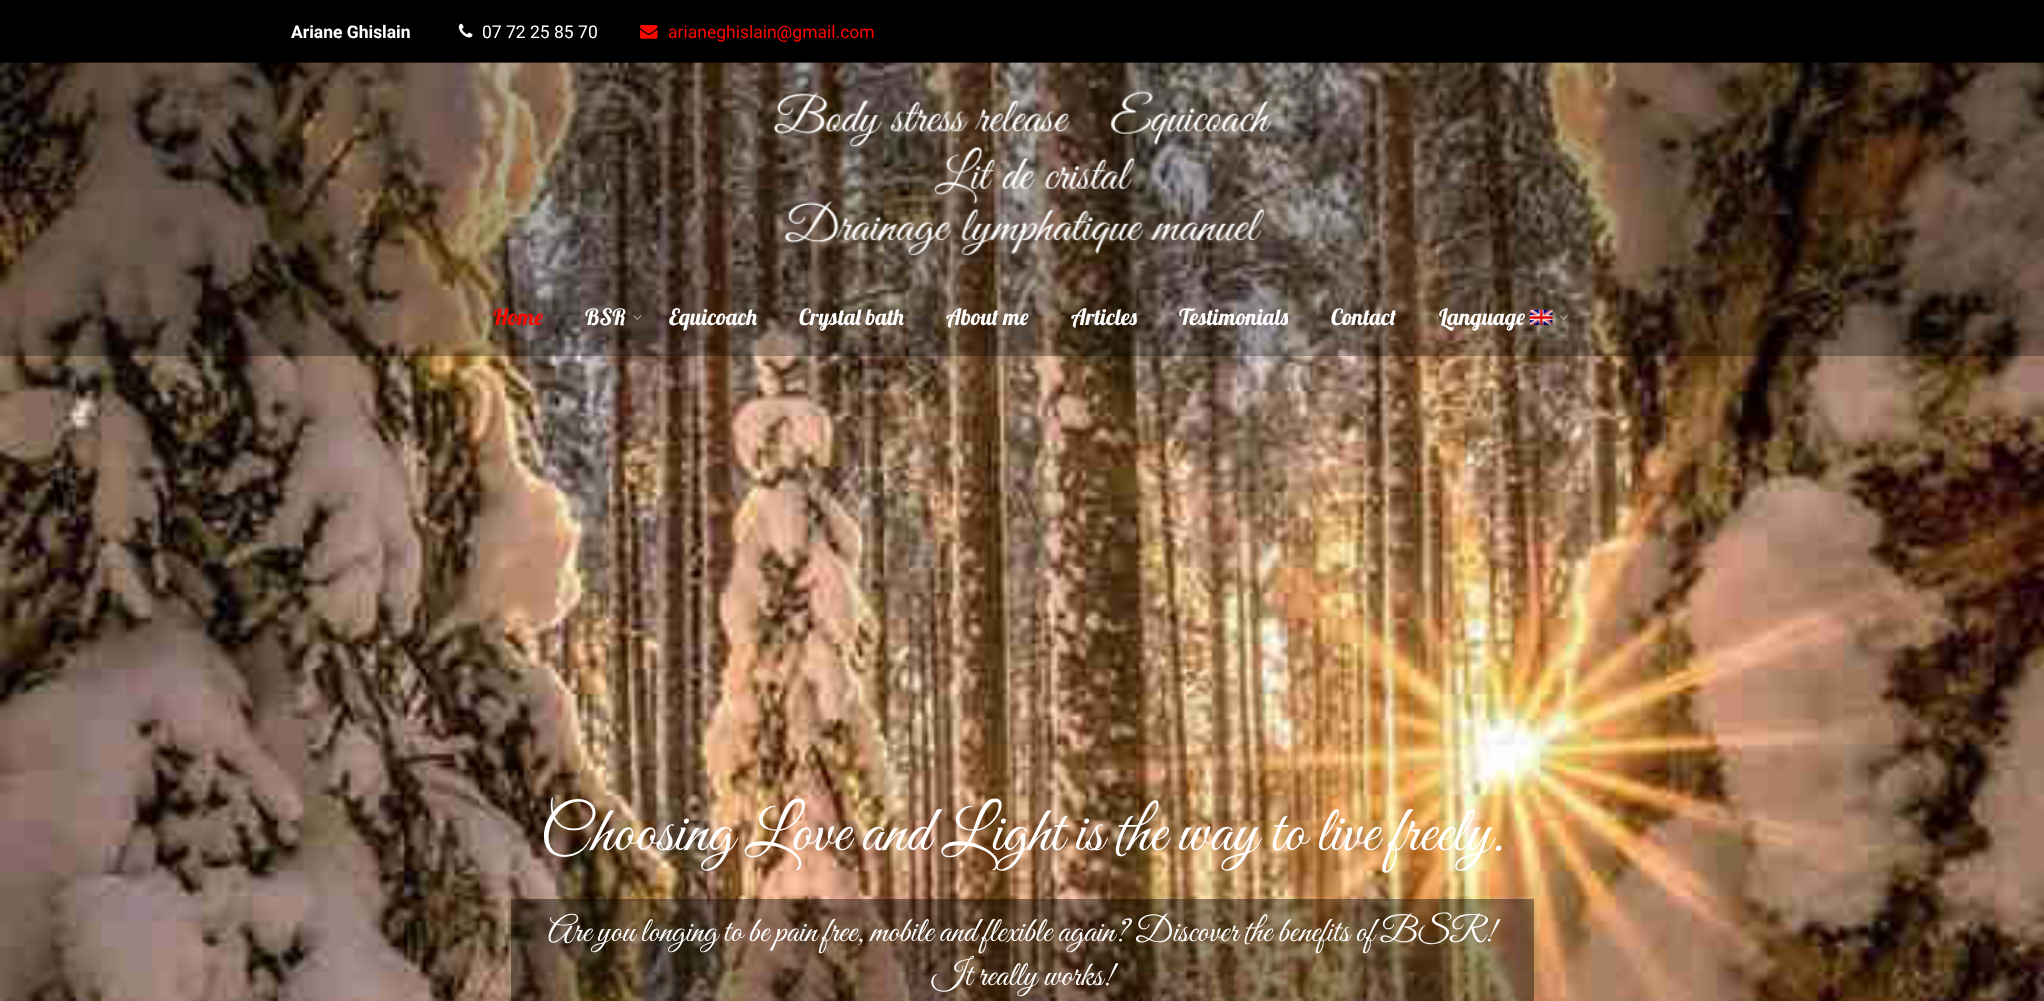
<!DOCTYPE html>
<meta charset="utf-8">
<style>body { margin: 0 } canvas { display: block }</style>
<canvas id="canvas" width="2044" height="1001"></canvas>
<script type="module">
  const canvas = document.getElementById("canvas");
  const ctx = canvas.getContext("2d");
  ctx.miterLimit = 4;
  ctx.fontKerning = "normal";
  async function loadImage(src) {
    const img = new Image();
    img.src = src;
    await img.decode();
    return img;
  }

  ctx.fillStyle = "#000000";
  ctx.fillRect(0, 0, 2044, 1001);
  ctx.font = "bold 17.5px Roboto";
  ctx.fillStyle = "#ffffff";
  ctx.fillText("Ariane Ghislain", 291, 38);
  ctx.drawImage(await loadImage("img1.png"), 458, 23, 15, 15);
  ctx.font = "17.5px Roboto";
  ctx.fillText("07 72 25 85 70", 482, 38);
  ctx.drawImage(await loadImage("img2.png"), 640, 25, 18, 14);
  ctx.fillStyle = "#fc0800";
  ctx.fillText("arianeghislain@gmail.com", 668, 38);
  ctx.drawImage(await loadImage("img7.png"), 0, 62, 2044, 939);
  ctx.fillStyle = "rgba(0, 0, 0, 0.3)";
  ctx.fillRect(0, 63, 2044, 293);
  ctx.drawImage(await loadImage("img3.png"), 773, 91, 499, 165);
  ctx.font = "22.5px Lobster";
  ctx.fillStyle = "#fc0800";
  ctx.fillText("Home", 493, 325);
  ctx.fillStyle = "#ffffff";
  ctx.fillText("BSR", 585, 325);
  ctx.drawImage(await loadImage("img4.png"), 633, 315, 9, 5);
  ctx.fillText("Equicoach", 669, 325);
  ctx.fillText("Crystal bath", 799, 325);
  ctx.fillText("About me", 946, 325);
  ctx.fillText("Articles", 1071, 325);
  ctx.fillText("Testimonials", 1179, 325);
  ctx.fillText("Contact", 1331, 325);
  ctx.fillText("Language", 1439, 325);
  ctx.drawImage(await loadImage("img5.png"), 1530, 310, 23, 15);
  ctx.drawImage(await loadImage("img6.png"), 1559, 315, 9, 5);
  ctx.font = "65px Great Vibes";
  ctx.fillText("Choosing Love and Light is the way to live freely.", 540, 850);
  ctx.fillStyle = "rgba(0, 0, 0, 0.4)";
  ctx.fillRect(511, 899, 1023, 102);
  ctx.font = "35px Great Vibes";
  ctx.fillStyle = "#ffffff";
  ctx.fillText("Are you longing to be pain free, mobile and flexible again? Discover the benefits of BSR!", 548, 941);
  ctx.fillText("It really works!", 932, 985);
</script>
